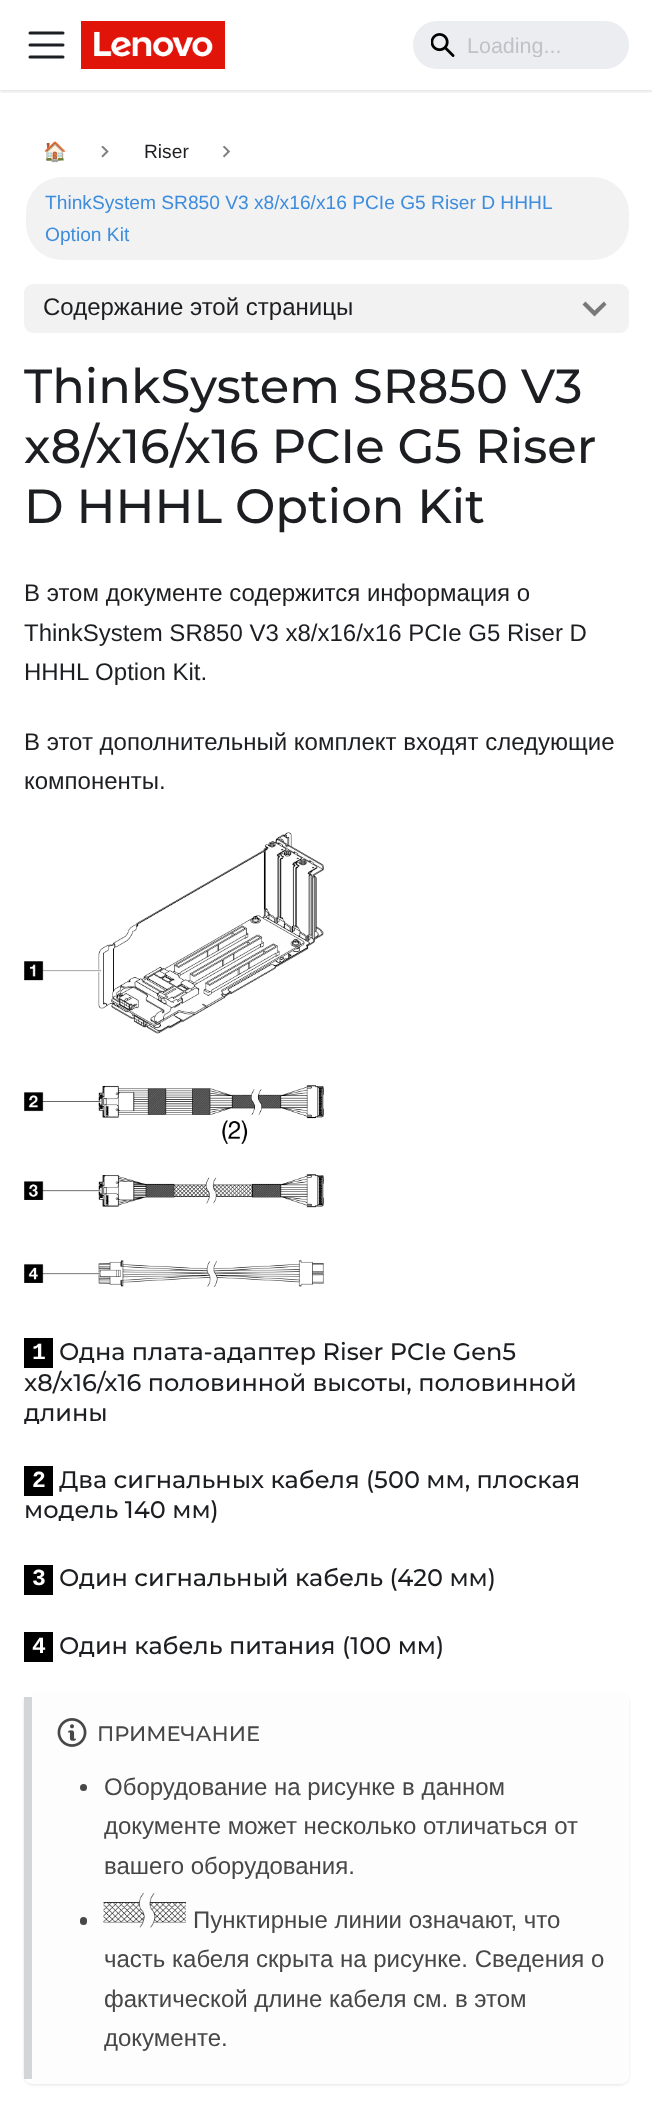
<!DOCTYPE html>
<meta charset="utf-8">
<style>body { margin: 0 } canvas { display: block }</style>
<canvas id="canvas" width="652" height="2106"></canvas>
<script type="module">
  const canvas = document.getElementById("canvas");
  const ctx = canvas.getContext("2d");
  ctx.miterLimit = 4;
  ctx.fontKerning = "normal";
  async function loadImage(src) {
    const img = new Image();
    img.src = src;
    await img.decode();
    return img;
  }

  ctx.fillStyle = "#ffffff";
  ctx.fillRect(0, 0, 652, 2106);
  ctx.save();
  ctx.beginPath();
  ctx.rect(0, 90, 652, 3);
  ctx.clip();
  ctx.fillStyle = "rgba(0, 0, 0, 0.1)";
  ctx.filter = "blur(1.5px)";
  ctx.beginPath();
  ctx.rect(0, 2, 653, 90);
  ctx.fill();
  ctx.filter = "none";
  ctx.restore();
  ctx.beginPath();
  ctx.moveTo(30, 33);
  ctx.lineTo(63, 33);
  ctx.moveTo(30, 45);
  ctx.lineTo(63, 45);
  ctx.moveTo(30, 57);
  ctx.lineTo(63, 57);
  ctx.strokeStyle = "#1c1e21";
  ctx.lineWidth = 3;
  ctx.lineCap = "round";
  ctx.stroke();
  ctx.drawImage(await loadImage("img1.png"), 81, 21, 144, 48);
  ctx.fillStyle = "#ebedf0";
  ctx.beginPath();
  ctx.roundRect(413, 21, 216, 48, 24);
  ctx.fill();
  ctx.drawImage(await loadImage("img2.png"), 431, 33, 24, 24);
  ctx.save();
  ctx.beginPath();
  ctx.rect(467, 33, 129, 24);
  ctx.clip();
  ctx.font = "21.5px Liberation Sans";
  ctx.fillStyle = "#bec3c9";
  ctx.fillText("Loading...", 467, 53);
  ctx.restore();
  ctx.font = "19.2px Noto Color Emoji";
  ctx.fillStyle = "#1c1e21";
  ctx.fillText("🏠", 43, 158);
  ctx.drawImage(await loadImage("img3.png"), 101, 146, 8, 12);
  ctx.font = "19.2px Liberation Sans";
  ctx.fillText("Riser", 144, 158);
  ctx.drawImage(await loadImage("img4.png"), 223, 146, 8, 12);
  ctx.fillStyle = "#f2f2f2";
  ctx.beginPath();
  ctx.roundRect(26, 177, 603, 83, 36);
  ctx.fill();
  ctx.fillStyle = "#3e8ddd";
  ctx.fillText("ThinkSystem SR850 V3 x8/x16/x16 PCIe G5 Riser D HHHL", 45, 209);
  ctx.fillText("Option Kit", 45, 241);
  ctx.fillStyle = "#f2f2f2";
  ctx.beginPath();
  ctx.roundRect(24, 284, 605, 49, 9);
  ctx.fill();
  ctx.font = "24px Liberation Sans";
  ctx.fillStyle = "#1c1e21";
  ctx.fillText("Содержание этой страницы", 43, 315);
  ctx.fillStyle = "#797979";
  ctx.beginPath();
  ctx.moveTo(604, 301.5);
  ctx.lineTo(594.5, 310.5);
  ctx.lineTo(585.5, 301.5);
  ctx.lineTo(582.5, 304.5);
  ctx.lineTo(594.5, 316.5);
  ctx.lineTo(606.5, 304.5);
  ctx.closePath();
  ctx.fill();
  ctx.font = "500 48px Montserrat";
  ctx.fillStyle = "#1c1e21";
  ctx.fillText("ThinkSystem SR850 V3", 24, 403);
  ctx.fillText("x8/x16/x16 PCIe G5 Riser", 24, 463);
  ctx.fillText("D HHHL Option Kit", 24, 523);
  ctx.font = "24px Liberation Sans";
  ctx.fillText("В этом документе содержится информация о", 24, 601);
  ctx.fillText("ThinkSystem SR850 V3 x8/x16/x16 PCIe G5 Riser D", 24, 641);
  ctx.fillText("HHHL Option Kit.", 24, 680);
  ctx.fillText("В этот дополнительный комплект входят следующие", 24, 750);
  ctx.fillText("компоненты.", 24, 789);
  ctx.drawImage(await loadImage("img5.png"), 24, 832, 300, 455);
  ctx.fillStyle = "#000000";
  ctx.fillRect(24, 1338, 29, 30);
  ctx.font = "bold 23px Liberation Mono";
  ctx.fillStyle = "#ffffff";
  ctx.fillText("1", 32, 1359);
  ctx.font = "500 24px Montserrat";
  ctx.fillStyle = "#1c1e21";
  ctx.fillText("Одна плата-адаптер Riser PCIe Gen5", 59, 1360);
  ctx.fillText("x8/x16/x16 половинной высоты, половинной", 24, 1391);
  ctx.fillText("длины", 24, 1421);
  ctx.fillStyle = "#000000";
  ctx.fillRect(24, 1466, 29, 30);
  ctx.font = "bold 23px Liberation Mono";
  ctx.fillStyle = "#ffffff";
  ctx.fillText("2", 32, 1487);
  ctx.font = "500 24px Montserrat";
  ctx.fillStyle = "#1c1e21";
  ctx.fillText("Два сигнальных кабеля (500 мм, плоская", 59, 1488);
  ctx.fillText("модель 140 мм)", 24, 1518);
  ctx.fillStyle = "#000000";
  ctx.fillRect(24, 1565, 29, 30);
  ctx.font = "bold 23px Liberation Mono";
  ctx.fillStyle = "#ffffff";
  ctx.fillText("3", 32, 1585);
  ctx.font = "500 24px Montserrat";
  ctx.fillStyle = "#1c1e21";
  ctx.fillText("Один сигнальный кабель (420 мм)", 59, 1586);
  ctx.fillStyle = "#000000";
  ctx.fillRect(24, 1632, 29, 30);
  ctx.font = "bold 23px Liberation Mono";
  ctx.fillStyle = "#ffffff";
  ctx.fillText("4", 32, 1653);
  ctx.font = "500 24px Montserrat";
  ctx.fillStyle = "#1c1e21";
  ctx.fillText("Один кабель питания (100 мм)", 59, 1654);
  ctx.save();
  ctx.beginPath();
  ctx.moveTo(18, 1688);
  ctx.lineTo(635, 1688);
  ctx.lineTo(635, 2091);
  ctx.lineTo(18, 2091);
  ctx.closePath();
  ctx.moveTo(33, 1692);
  ctx.lineTo(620, 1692);
  ctx.bezierCurveTo(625, 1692, 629, 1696, 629, 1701);
  ctx.lineTo(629, 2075);
  ctx.bezierCurveTo(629, 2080, 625, 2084, 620, 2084);
  ctx.lineTo(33, 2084);
  ctx.bezierCurveTo(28, 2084, 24, 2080, 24, 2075);
  ctx.lineTo(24, 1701);
  ctx.bezierCurveTo(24, 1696, 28, 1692, 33, 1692);
  ctx.closePath();
  ctx.clip("evenodd");
  ctx.fillStyle = "rgba(0, 0, 0, 0.1)";
  ctx.filter = "blur(1.5px)";
  ctx.beginPath();
  ctx.roundRect(24, 1694, 605, 391, 9);
  ctx.fill();
  ctx.filter = "none";
  ctx.restore();
  ctx.fillStyle = "#fdfdfe";
  ctx.beginPath();
  ctx.moveTo(34, 1692);
  ctx.lineTo(619, 1692);
  ctx.bezierCurveTo(624, 1692, 628, 1696, 628, 1702);
  ctx.lineTo(628, 2074);
  ctx.bezierCurveTo(628, 2079, 624, 2084, 619, 2084);
  ctx.lineTo(34, 2084);
  ctx.bezierCurveTo(32, 2084, 32, 2079, 32, 2074);
  ctx.lineTo(32, 1702);
  ctx.bezierCurveTo(32, 1696, 32, 1692, 34, 1692);
  ctx.closePath();
  ctx.fill();
  ctx.fillStyle = "#d4d5d8";
  ctx.fillRect(24, 1697, 8, 382);
  ctx.drawImage(await loadImage("img6.png"), 57, 1718, 30, 29);
  ctx.font = "500 21px Montserrat";
  ctx.fillStyle = "#474748";
  ctx.fillText("ПРИМЕЧАНИЕ", 97, 1741);
  ctx.beginPath();
  ctx.arc(83.5, 1787.5, 3.5, 0, Math.PI * 2);
  ctx.fill();
  ctx.font = "24px Liberation Sans";
  ctx.fillText("Оборудование на рисунке в данном", 104, 1795);
  ctx.fillText("документе может несколько отличаться от", 104, 1834);
  ctx.fillText("вашего оборудования.", 104, 1874);
  ctx.beginPath();
  ctx.roundRect(80, 1917, 7, 8, 3.5);
  ctx.fill();
  ctx.drawImage(await loadImage("img7.png"), 103, 1893, 83, 35);
  ctx.fillText("Пунктирные линии означают, что", 193, 1928);
  ctx.fillText("часть кабеля скрыта на рисунке. Сведения о", 104, 1967);
  ctx.fillText("фактической длине кабеля см. в этом", 104, 2007);
  ctx.fillText("документе.", 104, 2046);
</script>
